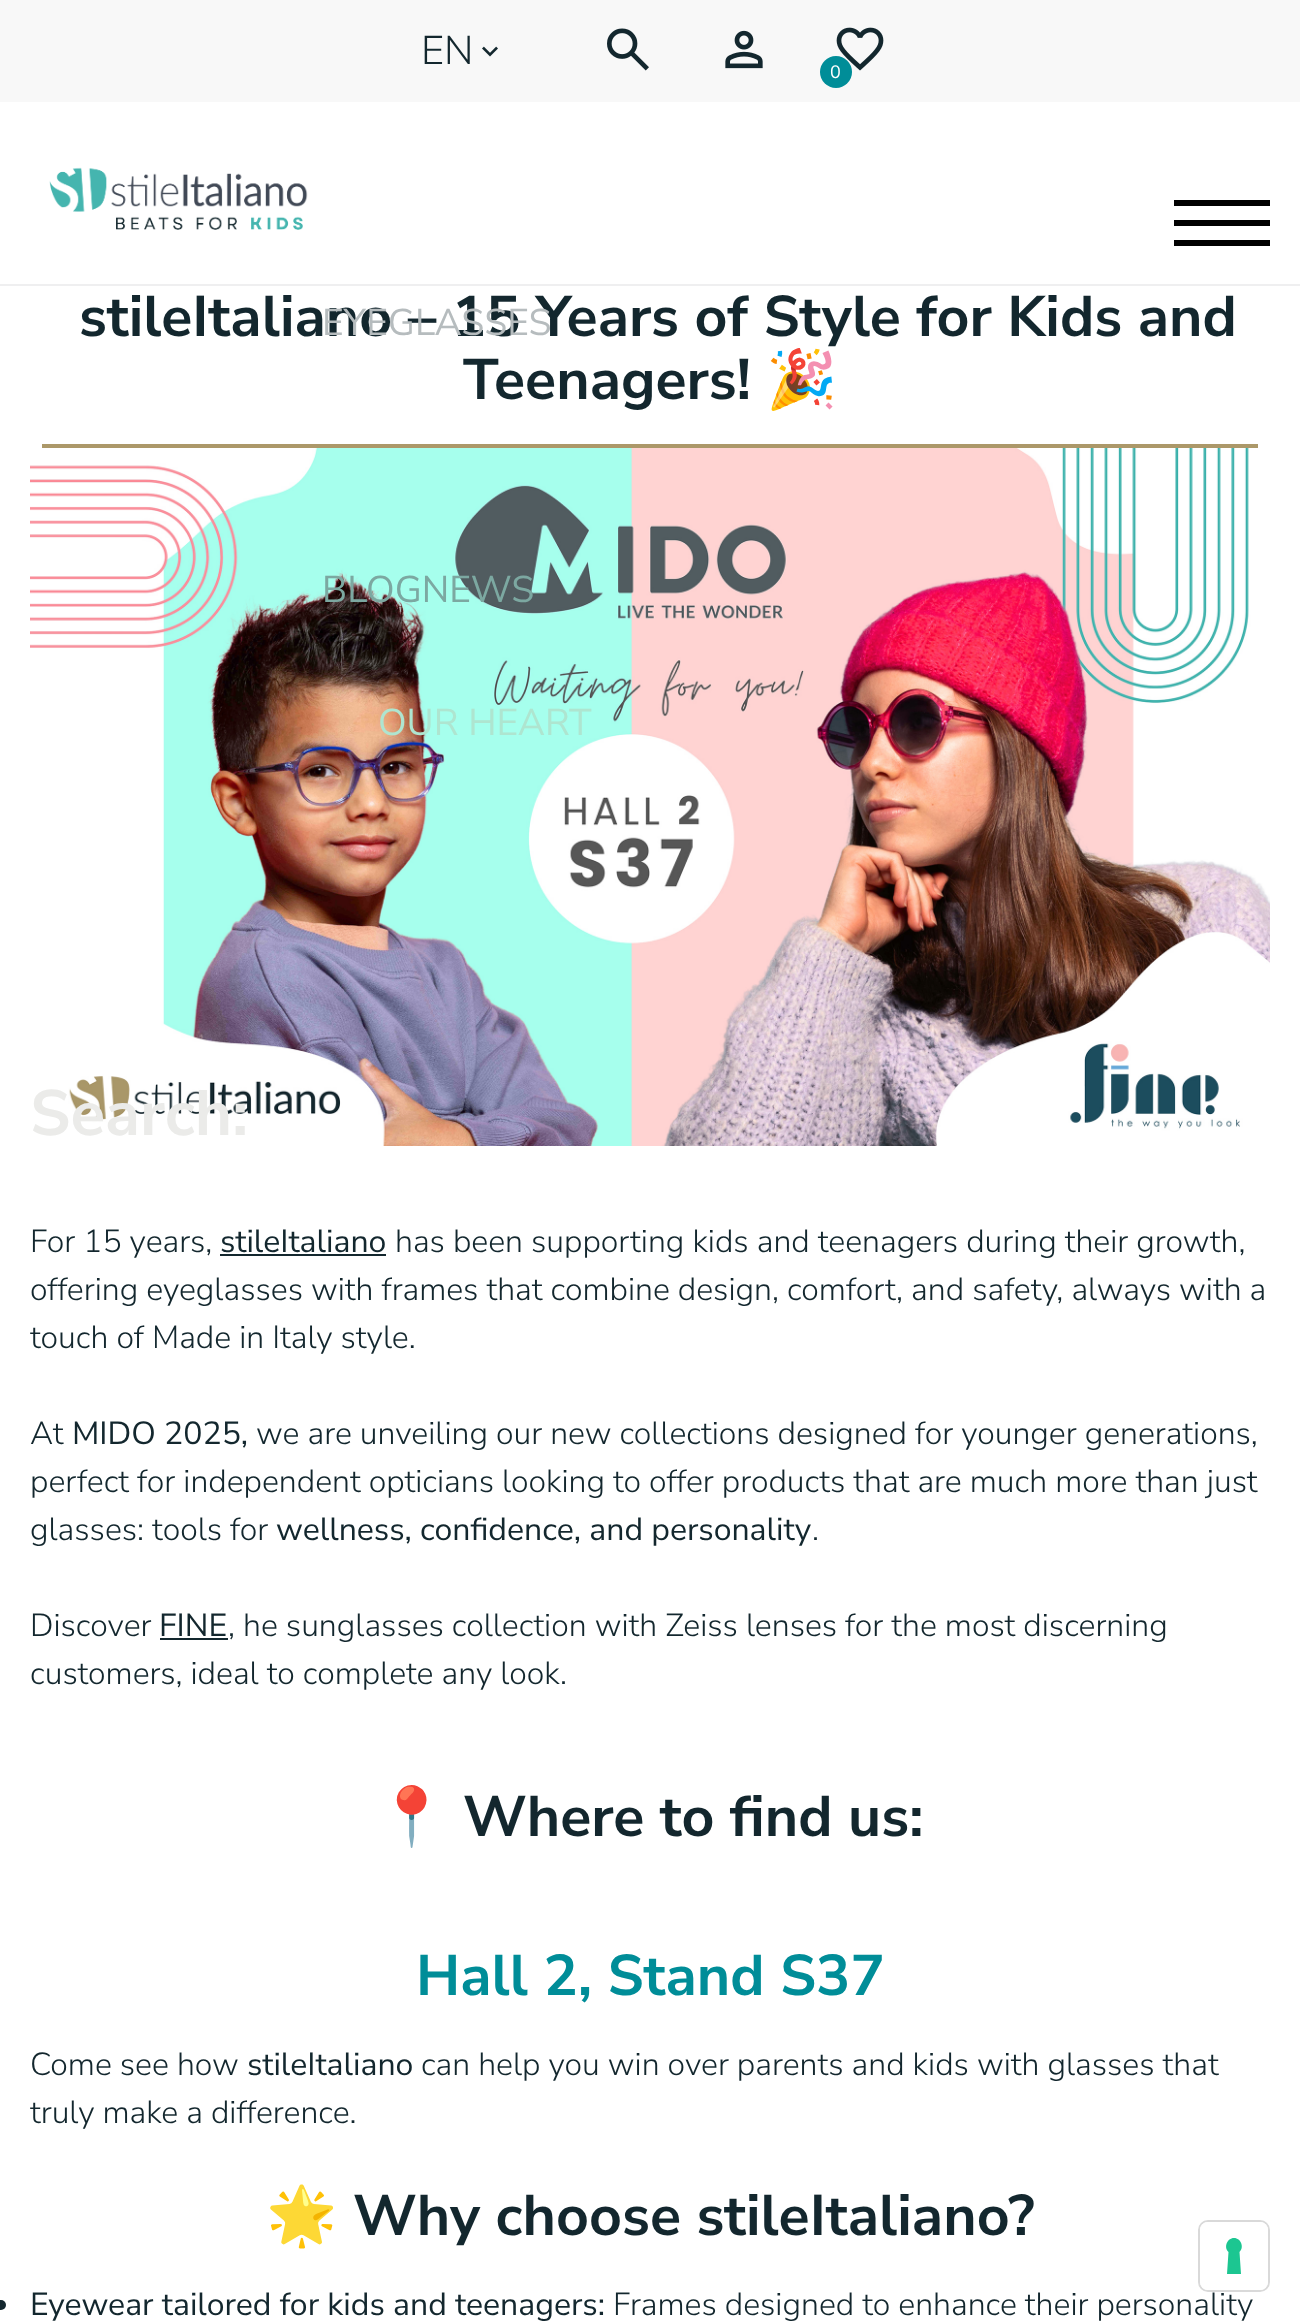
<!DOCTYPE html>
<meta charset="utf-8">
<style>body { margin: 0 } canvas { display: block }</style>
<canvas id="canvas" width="1300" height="2322"></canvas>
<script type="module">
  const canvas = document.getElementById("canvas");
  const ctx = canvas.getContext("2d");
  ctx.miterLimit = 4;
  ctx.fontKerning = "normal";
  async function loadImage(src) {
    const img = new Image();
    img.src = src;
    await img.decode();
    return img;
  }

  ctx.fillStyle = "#ffffff";
  ctx.fillRect(0, 0, 1300, 2322);
  ctx.fillStyle = "#efeff0";
  ctx.fillRect(0, 284, 1300, 2);
  ctx.fillStyle = "#f8f8f8";
  ctx.fillRect(0, 0, 1300, 102);
  ctx.font = "300 40px Nunito Sans";
  ctx.fillStyle = "#13272e";
  ctx.fillText("EN", 421, 64);
  ctx.drawImage(await loadImage("img1.png"), 482, 46, 16, 11);
  ctx.drawImage(await loadImage("img2.png"), 607, 28, 42, 43);
  ctx.drawImage(await loadImage("img3.png"), 725, 30, 38, 39);
  ctx.drawImage(await loadImage("img4.png"), 836, 27, 48, 44);
  ctx.fillStyle = "#008d98";
  ctx.beginPath();
  ctx.arc(836, 72, 16, 0, Math.PI * 2);
  ctx.fill();
  ctx.font = "18px Nunito Sans";
  ctx.fillStyle = "#ffffff";
  ctx.fillText("0", 830, 78);
  ctx.drawImage(await loadImage("img5.png"), 49, 167, 259, 63);
  ctx.font = "bold 57.25px Nunito Sans";
  ctx.fillStyle = "#13272e";
  ctx.fillText("stileItaliano – 15 Years of Style for Kids and", 79, 336);
  ctx.font = "37.25px Nunito Sans";
  ctx.fillStyle = "#b6bcbe";
  ctx.fillText("EYEGLASSES", 322, 335);
  ctx.drawImage(await loadImage("img6.png"), 30, 448, 1240, 698);
  ctx.fillStyle = "#7ca8a1";
  ctx.fillText("BLOGNEWS", 322, 602);
  ctx.fillStyle = "#aee5d0";
  ctx.fillText("OUR HEART", 378, 735);
  ctx.fillStyle = "#000000";
  ctx.fillRect(1174, 220, 96, 6);
  ctx.fillRect(1174, 200, 96, 6);
  ctx.fillRect(1174, 240, 96, 6);
  ctx.font = "bold 57.25px Nunito Sans";
  ctx.fillStyle = "#13272e";
  ctx.fillText("Teenagers!", 463, 399);
  ctx.font = "bold 57.25px Noto Color Emoji";
  ctx.fillText("🎉", 766, 399);
  ctx.fillStyle = "#ac9869";
  ctx.fillRect(42, 444, 1216, 4);
  ctx.font = "300 32px Nunito Sans";
  ctx.fillStyle = "#13272e";
  ctx.fillText("For 15 years,", 30, 1252);
  ctx.font = "32px Nunito Sans";
  ctx.fillText("stileItaliano", 220, 1252);
  ctx.fillRect(220, 1254, 166, 2);
  ctx.font = "300 32px Nunito Sans";
  ctx.fillText("has been supporting kids and teenagers during their growth,", 395, 1252);
  ctx.fillText("offering eyeglasses with frames that combine design, comfort, and safety, always with a", 30, 1300);
  ctx.fillText("touch of Made in Italy style.", 30, 1348);
  ctx.fillText("At", 30, 1444);
  ctx.font = "32px Nunito Sans";
  ctx.fillText("MIDO 2025,", 72, 1444);
  ctx.font = "300 32px Nunito Sans";
  ctx.fillText("we are unveiling our new collections designed for younger generations,", 256, 1444);
  ctx.fillText("perfect for independent opticians looking to offer products that are much more than just", 30, 1492);
  ctx.fillText("glasses: tools for", 30, 1540);
  ctx.font = "32px Nunito Sans";
  ctx.fillText("wellness, confidence, and personality", 276, 1540);
  ctx.font = "300 32px Nunito Sans";
  ctx.fillText(".", 812, 1540);
  ctx.fillText("Discover", 30, 1636);
  ctx.font = "32px Nunito Sans";
  ctx.fillText("FINE", 159, 1636);
  ctx.fillRect(160, 1638, 68, 2);
  ctx.font = "300 32px Nunito Sans";
  ctx.fillText(", he sunglasses collection with Zeiss lenses for the most discerning", 228, 1636);
  ctx.fillText("customers, ideal to complete any look.", 30, 1684);
  ctx.font = "bold 57.25px Noto Color Emoji";
  ctx.fillText("📍", 376, 1836);
  ctx.font = "bold 57.25px Nunito Sans";
  ctx.fillText("Where to find us:", 463, 1836);
  ctx.fillStyle = "#008d98";
  ctx.fillText("Hall 2, Stand S37", 416, 1995);
  ctx.font = "300 32px Nunito Sans";
  ctx.fillStyle = "#13272e";
  ctx.fillText("Come see how", 30, 2075);
  ctx.font = "32px Nunito Sans";
  ctx.fillText("stileItaliano", 247, 2075);
  ctx.font = "300 32px Nunito Sans";
  ctx.fillText("can help you win over parents and kids with glasses that", 421, 2075);
  ctx.fillText("truly make a difference.", 30, 2123);
  ctx.font = "bold 57.25px Noto Color Emoji";
  ctx.fillText("🌟", 266, 2235);
  ctx.font = "bold 57.25px Nunito Sans";
  ctx.fillText("Why choose stileItaliano?", 353, 2235);
  ctx.beginPath();
  ctx.arc(1, 2305, 5, 0, Math.PI * 2);
  ctx.fill();
  ctx.font = "32px Nunito Sans";
  ctx.fillText("Eyewear tailored for kids and teenagers:", 30, 2315);
  ctx.font = "300 32px Nunito Sans";
  ctx.fillText("Frames designed to enhance their personality", 613, 2315);
  ctx.font = "bold 64px Nunito Sans";
  ctx.fillStyle = "#ebebe9";
  ctx.fillText("Search:", 30, 1135);
  ctx.beginPath();
  ctx.roundRect(1199, 2221, 70, 70, 9);
  ctx.strokeStyle = "#d9d9d9";
  ctx.lineWidth = 2;
  ctx.stroke();
  ctx.fillStyle = "#ffffff";
  ctx.beginPath();
  ctx.roundRect(1200, 2222, 68, 68, 8);
  ctx.fill();
  ctx.fillStyle = "#1cc691";
  ctx.beginPath();
  ctx.moveTo(1234, 2238);
  ctx.bezierCurveTo(1241, 2238, 1244.5, 2247.5, 1239.5, 2252);
  ctx.lineTo(1241, 2274);
  ctx.lineTo(1227, 2274);
  ctx.lineTo(1228.5, 2252);
  ctx.bezierCurveTo(1223.5, 2247.5, 1227, 2238, 1234, 2238);
  ctx.closePath();
  ctx.fill("evenodd");
</script>
